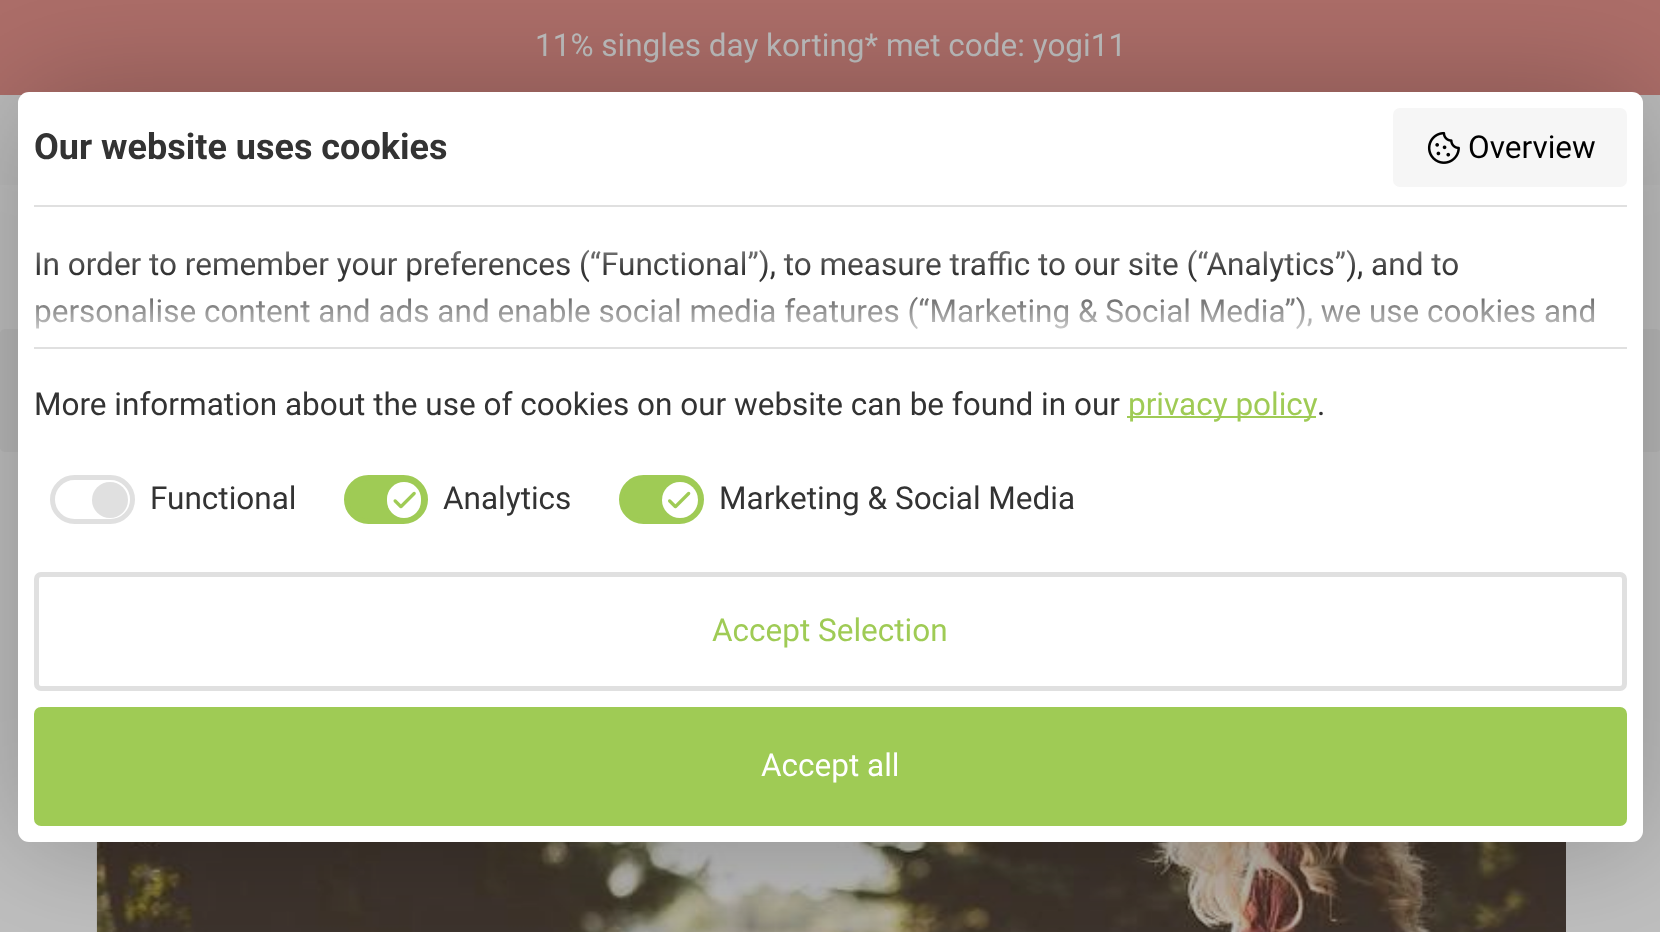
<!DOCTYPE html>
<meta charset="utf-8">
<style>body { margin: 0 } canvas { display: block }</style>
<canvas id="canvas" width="1660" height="932"></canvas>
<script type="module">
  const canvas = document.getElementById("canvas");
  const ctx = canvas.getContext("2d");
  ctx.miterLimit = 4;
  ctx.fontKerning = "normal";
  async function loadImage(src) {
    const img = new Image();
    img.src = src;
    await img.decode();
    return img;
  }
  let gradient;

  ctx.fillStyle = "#bfbfbf";
  ctx.fillRect(0, 0, 1660, 932);
  ctx.fillStyle = "#ad6e69";
  ctx.fillRect(0, 0, 1660, 95);
  ctx.font = "31.5px Roboto";
  ctx.fillStyle = "#bfbfbf";
  ctx.fillText("11% singles day korting* met code: yogi11", 535, 56);
  ctx.fillStyle = "#bcbcbc";
  ctx.fillRect(0, 95, 1660, 90);
  ctx.fillStyle = "#b8b8b8";
  ctx.beginPath();
  ctx.roundRect(0, 329, 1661, 123, 5);
  ctx.fill();
  ctx.drawImage(await loadImage("img4.png"), 96, 842, 1470, 90);
  ctx.fillStyle = "rgba(0, 0, 0, 0.25)";
  ctx.filter = "blur(63px)";
  ctx.beginPath();
  ctx.roundRect(18, 92, 1625, 750, 11);
  ctx.fill();
  ctx.filter = "none";
  ctx.fillStyle = "#ffffff";
  ctx.beginPath();
  ctx.roundRect(18, 92, 1625, 750, 11);
  ctx.fill();
  ctx.font = "bold 36px Roboto";
  ctx.fillStyle = "#333333";
  ctx.fillText("Our website uses cookies", 34, 159);
  ctx.fillStyle = "#f6f6f6";
  ctx.beginPath();
  ctx.roundRect(1393, 108, 234, 79, 7);
  ctx.fill();
  ctx.drawImage(await loadImage("img1.png"), 1427, 131, 33, 33);
  ctx.font = "31.5px Roboto";
  ctx.fillStyle = "#000000";
  ctx.fillText("Overview", 1468, 158);
  ctx.fillStyle = "#e0e0e0";
  ctx.fillRect(34, 205, 1593, 2);
  ctx.fillRect(34, 347, 1593, 2);
  ctx.fillStyle = "#333333";
  ctx.fillText("In order to remember your preferences (“Functional”), to measure traffic to our site (“Analytics”), and to", 34, 275);
  ctx.fillText("personalise content and ads and enable social media features (“Marketing & Social Media”), we use cookies and", 34, 322);
  gradient = ctx.createLinearGradient(830, 272, 830, 205);
  gradient.addColorStop(0, "rgba(255, 255, 255, 0)");
  gradient.addColorStop(1, "#ffffff");
  ctx.fillStyle = gradient;
  ctx.fillRect(36, 249, 1422, 22);
  gradient = ctx.createLinearGradient(830, 279, 830, 347);
  gradient.addColorStop(0, "rgba(255, 255, 255, 0)");
  gradient.addColorStop(1, "#ffffff");
  ctx.fillStyle = gradient;
  ctx.fillRect(35, 280, 1559, 50);
  ctx.fillStyle = "#333333";
  ctx.fillText("More information about the use of cookies on our website can be found in our", 34, 415);
  ctx.fillStyle = "#9fcb55";
  ctx.fillRect(1127, 416, 189, 2);
  ctx.fillText("privacy policy", 1128, 415);
  ctx.fillStyle = "#333333";
  ctx.fillText(".", 1317, 415);
  ctx.beginPath();
  ctx.roundRect(52.5, 477.5, 80, 44, 22);
  ctx.strokeStyle = "#e0e0e0";
  ctx.lineWidth = 5;
  ctx.stroke();
  ctx.fillStyle = "#e0e0e0";
  ctx.beginPath();
  ctx.arc(110, 500, 18, 0, Math.PI * 2);
  ctx.fill();
  ctx.fillStyle = "#333333";
  ctx.fillText("Functional", 150, 509);
  ctx.fillStyle = "#9fcb55";
  ctx.beginPath();
  ctx.roundRect(346.5, 477.5, 79, 44, 22);
  ctx.fill();
  ctx.strokeStyle = "#9fcb55";
  ctx.stroke();
  ctx.fillStyle = "#ffffff";
  ctx.beginPath();
  ctx.roundRect(387, 482, 34, 36, 17);
  ctx.fill();
  ctx.drawImage(await loadImage("img2.png"), 393, 491, 23, 18);
  ctx.fillStyle = "#333333";
  ctx.fillText("Analytics", 443, 509);
  ctx.fillStyle = "#9fcb55";
  ctx.beginPath();
  ctx.roundRect(621.5, 477.5, 80, 44, 22);
  ctx.fill();
  ctx.stroke();
  ctx.fillStyle = "#ffffff";
  ctx.beginPath();
  ctx.arc(680, 500, 18, 0, Math.PI * 2);
  ctx.fill();
  ctx.drawImage(await loadImage("img3.png"), 668, 491, 23, 18);
  ctx.fillStyle = "#333333";
  ctx.fillText("Marketing & Social Media", 719, 509);
  ctx.beginPath();
  ctx.roundRect(36.5, 574.5, 1588, 114, 4.5);
  ctx.strokeStyle = "#e0e0e0";
  ctx.stroke();
  ctx.fillStyle = "#9fcb55";
  ctx.fillText("Accept Selection", 712, 641);
  ctx.beginPath();
  ctx.roundRect(36.5, 709.5, 1588, 114, 4.5);
  ctx.fill();
  ctx.strokeStyle = "#9fcb55";
  ctx.stroke();
  ctx.fillStyle = "#ffffff";
  ctx.fillText("Accept all", 761, 776);
</script>
